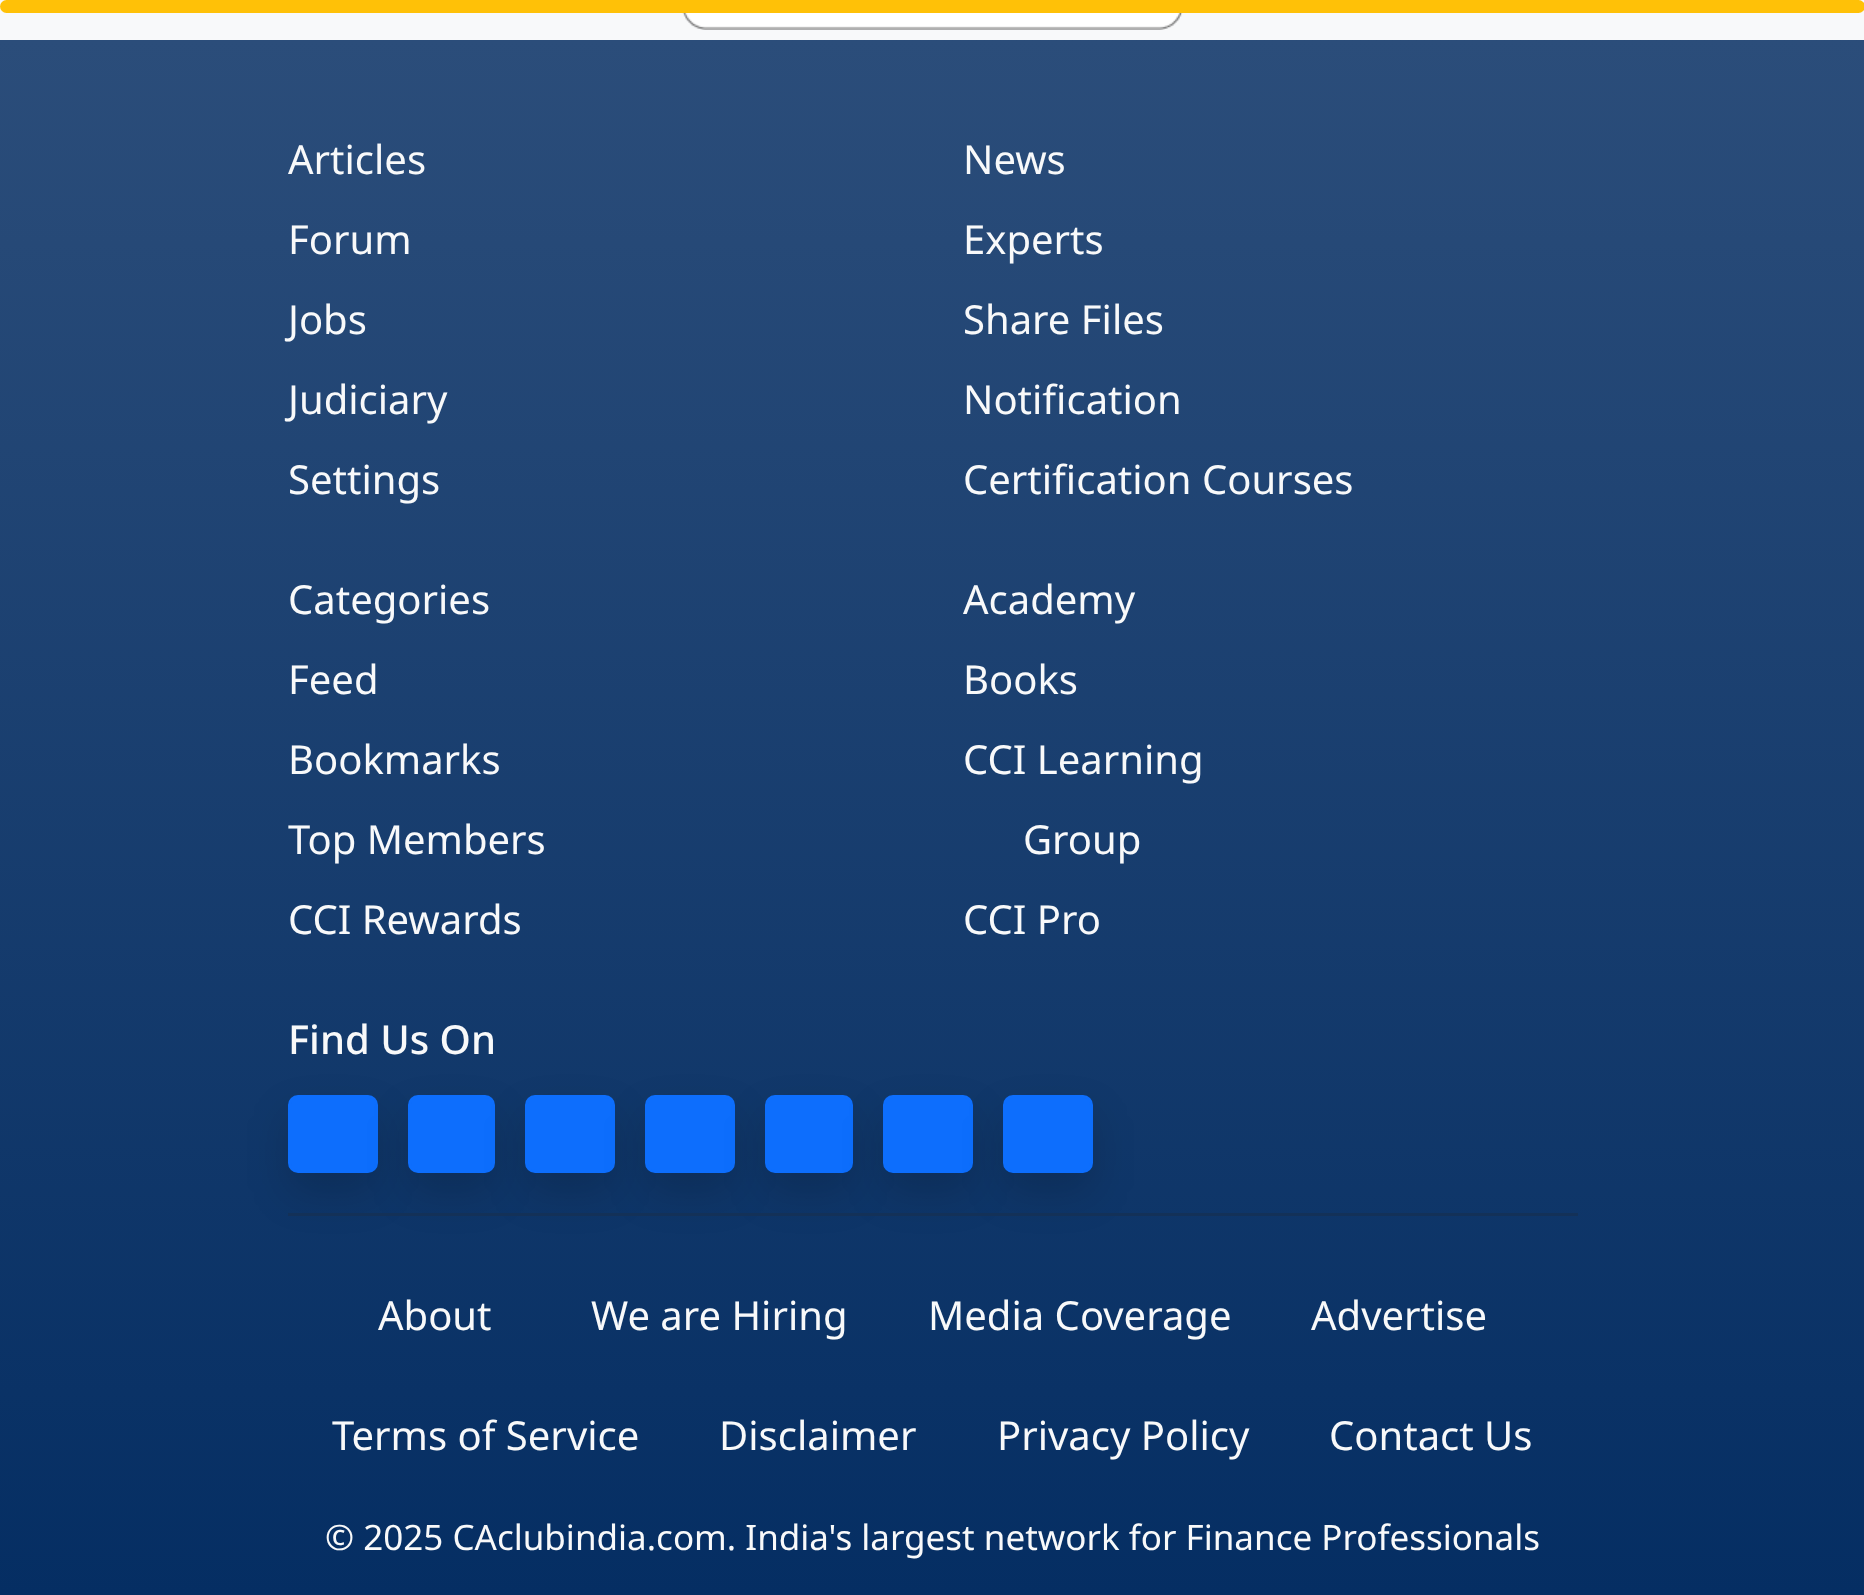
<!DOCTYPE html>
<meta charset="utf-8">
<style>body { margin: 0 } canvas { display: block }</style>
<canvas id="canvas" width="1864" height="1595"></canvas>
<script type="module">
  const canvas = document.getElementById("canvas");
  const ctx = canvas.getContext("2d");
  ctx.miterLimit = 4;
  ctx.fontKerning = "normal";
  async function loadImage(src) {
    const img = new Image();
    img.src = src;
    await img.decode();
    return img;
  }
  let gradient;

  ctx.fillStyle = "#ffffff";
  ctx.fillRect(0, 0, 1864, 1595);
  ctx.fillStyle = "#f8f9fa";
  ctx.fillRect(0, 0, 1864, 40);
  ctx.drawImage(await loadImage("img1.png"), 682, 13, 501, 17);
  ctx.fillStyle = "#ffc107";
  ctx.beginPath();
  ctx.roundRect(0, 0, 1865, 13, 6.5);
  ctx.fill();
  gradient = ctx.createLinearGradient(932, 40, 933, 1595);
  gradient.addColorStop(0, "#2b4d7a");
  gradient.addColorStop(1, "#052e63");
  ctx.fillStyle = gradient;
  ctx.fillRect(0, 40, 1864, 1555);
  ctx.font = "40px Noto Sans";
  ctx.fillStyle = "#f8f9fa";
  ctx.fillText("Articles", 288, 174);
  ctx.fillText("Forum", 288, 254);
  ctx.fillText("Jobs", 288, 334);
  ctx.fillText("Judiciary", 288, 414);
  ctx.fillText("Settings", 288, 494);
  ctx.fillText("News", 963, 174);
  ctx.fillText("Experts", 963, 254);
  ctx.fillText("Share Files", 963, 334);
  ctx.fillText("Notification", 963, 414);
  ctx.fillText("Certification Courses", 963, 494);
  ctx.fillText("Categories", 288, 614);
  ctx.fillText("Feed", 288, 694);
  ctx.fillText("Bookmarks", 288, 774);
  ctx.fillText("Top Members", 288, 854);
  ctx.fillText("CCI Rewards", 288, 934);
  ctx.fillText("Academy", 963, 614);
  ctx.fillText("Books", 963, 694);
  ctx.fillText("CCI Learning", 963, 774);
  ctx.fillText("Group", 1023, 854);
  ctx.fillText("CCI Pro", 963, 934);
  ctx.font = "500 40px Noto Sans";
  ctx.fillText("Find Us On", 288, 1054);
  ctx.fillStyle = "rgba(0, 0, 0, 0.15)";
  ctx.filter = "blur(20px)";
  ctx.beginPath();
  ctx.roundRect(288, 1115, 90, 78, 10);
  ctx.fill();
  ctx.filter = "none";
  ctx.fillStyle = "#0d6efd";
  ctx.beginPath();
  ctx.roundRect(289.5, 1096.5, 87, 75, 8.5);
  ctx.fill();
  ctx.strokeStyle = "#0d6efd";
  ctx.lineWidth = 3;
  ctx.stroke();
  ctx.fillStyle = "rgba(0, 0, 0, 0.15)";
  ctx.filter = "blur(20px)";
  ctx.beginPath();
  ctx.roundRect(408, 1115, 87, 78, 10);
  ctx.fill();
  ctx.filter = "none";
  ctx.fillStyle = "#0d6efd";
  ctx.beginPath();
  ctx.roundRect(409.5, 1096.5, 84, 75, 8.5);
  ctx.fill();
  ctx.stroke();
  ctx.fillStyle = "rgba(0, 0, 0, 0.15)";
  ctx.filter = "blur(20px)";
  ctx.beginPath();
  ctx.roundRect(525, 1115, 90, 78, 10);
  ctx.fill();
  ctx.filter = "none";
  ctx.fillStyle = "#0d6efd";
  ctx.beginPath();
  ctx.roundRect(526.5, 1096.5, 87, 75, 8.5);
  ctx.fill();
  ctx.stroke();
  ctx.fillStyle = "rgba(0, 0, 0, 0.15)";
  ctx.filter = "blur(20px)";
  ctx.beginPath();
  ctx.roundRect(645, 1115, 90, 78, 10);
  ctx.fill();
  ctx.filter = "none";
  ctx.fillStyle = "#0d6efd";
  ctx.beginPath();
  ctx.roundRect(646.5, 1096.5, 87, 75, 8.5);
  ctx.fill();
  ctx.stroke();
  ctx.fillStyle = "rgba(0, 0, 0, 0.15)";
  ctx.filter = "blur(20px)";
  ctx.beginPath();
  ctx.roundRect(765, 1115, 88, 78, 10);
  ctx.fill();
  ctx.filter = "none";
  ctx.fillStyle = "#0d6efd";
  ctx.beginPath();
  ctx.roundRect(766.5, 1096.5, 85, 75, 8.5);
  ctx.fill();
  ctx.stroke();
  ctx.fillStyle = "rgba(0, 0, 0, 0.15)";
  ctx.filter = "blur(20px)";
  ctx.beginPath();
  ctx.roundRect(883, 1115, 90, 78, 10);
  ctx.fill();
  ctx.filter = "none";
  ctx.fillStyle = "#0d6efd";
  ctx.beginPath();
  ctx.roundRect(884.5, 1096.5, 87, 75, 8.5);
  ctx.fill();
  ctx.stroke();
  ctx.fillStyle = "rgba(0, 0, 0, 0.15)";
  ctx.filter = "blur(20px)";
  ctx.beginPath();
  ctx.roundRect(1003, 1115, 90, 78, 10);
  ctx.fill();
  ctx.filter = "none";
  ctx.fillStyle = "#0d6efd";
  ctx.beginPath();
  ctx.roundRect(1004.5, 1096.5, 87, 75, 8.5);
  ctx.fill();
  ctx.stroke();
  ctx.fillStyle = "#133158";
  ctx.fillRect(288, 1213, 1290, 3);
  ctx.font = "40px Noto Sans";
  ctx.fillStyle = "#f8f9fa";
  ctx.fillText("About", 378, 1330);
  ctx.fillText("We are Hiring", 591, 1330);
  ctx.fillText("Media Coverage", 928, 1330);
  ctx.fillText("Advertise", 1311, 1330);
  ctx.fillText("Terms of Service", 332, 1450);
  ctx.fillText("Disclaimer", 719, 1450);
  ctx.fillText("Privacy Policy", 997, 1450);
  ctx.fillText("Contact Us", 1329, 1450);
  ctx.font = "35px Noto Sans";
  ctx.fillText("© 2025 CAclubindia.com. India's largest network for Finance Professionals", 325, 1550);
</script>
